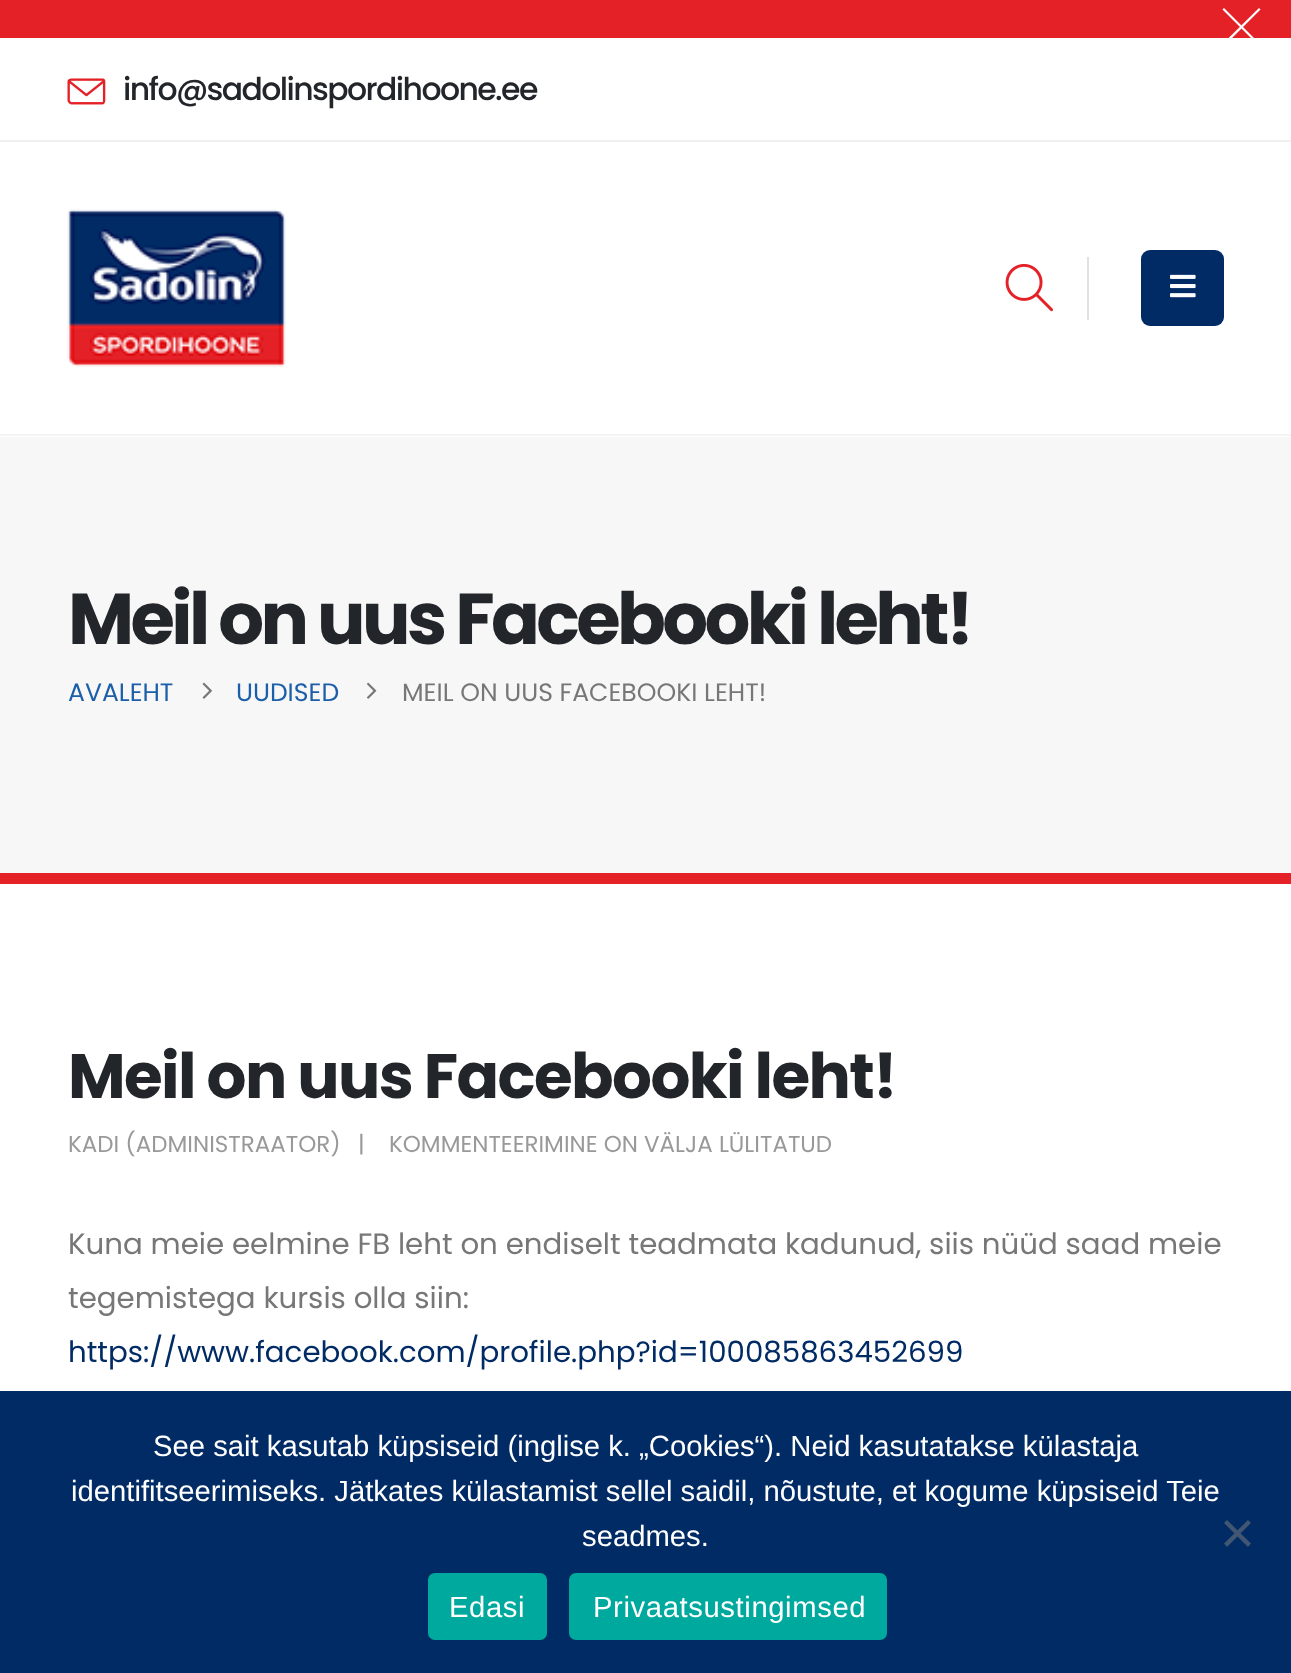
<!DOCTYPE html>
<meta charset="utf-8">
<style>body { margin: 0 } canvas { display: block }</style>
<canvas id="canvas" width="1291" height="1673"></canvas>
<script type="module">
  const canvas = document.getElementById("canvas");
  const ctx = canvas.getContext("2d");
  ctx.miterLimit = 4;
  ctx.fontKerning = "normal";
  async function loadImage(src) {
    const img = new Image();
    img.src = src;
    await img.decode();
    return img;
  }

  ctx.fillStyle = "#ffffff";
  ctx.fillRect(0, 0, 1291, 1673);
  ctx.fillStyle = "#e32127";
  ctx.fillRect(0, 0, 1291, 38);
  ctx.fillStyle = "#ffffff";
  ctx.beginPath();
  ctx.moveTo(1224, 8);
  ctx.lineTo(1262, 46);
  ctx.lineTo(1260.5, 47.5);
  ctx.lineTo(1222.5, 9.5);
  ctx.closePath();
  ctx.fill();
  ctx.beginPath();
  ctx.moveTo(1259, 8);
  ctx.lineTo(1260.5, 9.5);
  ctx.lineTo(1222.5, 47.5);
  ctx.lineTo(1220.5, 46);
  ctx.closePath();
  ctx.fill();
  ctx.fillStyle = "#f0f0f0";
  ctx.fillRect(0, 140, 1291, 2);
  ctx.drawImage(await loadImage("img1.png"), 67, 78, 39, 27);
  ctx.letterSpacing = "-1.6px";
  ctx.font = "500 31.5px Poppins";
  ctx.fillStyle = "#222529";
  ctx.fillText("info@sadolinspordihoone.ee", 123, 100);
  ctx.fillStyle = "#f5f5f5";
  ctx.fillRect(0, 434, 1291, 2);
  ctx.drawImage(await loadImage("img2.png"), 67, 209, 219, 158);
  ctx.drawImage(await loadImage("img3.png"), 1005, 263, 48, 49);
  ctx.fillStyle = "#dee2e6";
  ctx.fillRect(1087, 257, 2, 63);
  ctx.fillStyle = "#002b65";
  ctx.beginPath();
  ctx.roundRect(1141, 250, 83, 76, 9);
  ctx.fill();
  ctx.drawImage(await loadImage("img4.png"), 1170, 274, 26, 24);
  ctx.fillStyle = "#f7f7f7";
  ctx.fillRect(0, 437, 1291, 436);
  ctx.fillStyle = "#e32127";
  ctx.fillRect(0, 873, 1291, 11);
  ctx.letterSpacing = "-3.6px";
  ctx.font = "bold 72px Poppins";
  ctx.fillStyle = "#222529";
  ctx.fillText("Meil on uus Facebooki leht!", 68, 644);
  ctx.letterSpacing = "0px";
  ctx.font = "25.1px Poppins";
  ctx.fillStyle = "#1c5fa8";
  ctx.fillText("AVALEHT", 68, 701);
  ctx.drawImage(await loadImage("img5.png"), 202, 682, 10, 17);
  ctx.fillText("UUDISED", 236, 701);
  ctx.drawImage(await loadImage("img6.png"), 366, 682, 11, 17);
  ctx.fillStyle = "#777777";
  ctx.fillText("MEIL ON UUS FACEBOOKI LEHT!", 402, 701);
  ctx.letterSpacing = "-1.6px";
  ctx.font = "bold 62.75px Poppins";
  ctx.fillStyle = "#222529";
  ctx.fillText("Meil on uus Facebooki leht!", 68, 1098);
  ctx.letterSpacing = "0px";
  ctx.font = "23px Poppins";
  ctx.fillStyle = "#999999";
  ctx.fillText("KADI (ADMINISTRAATOR)", 68, 1152);
  ctx.fillText("|", 358, 1152);
  ctx.fillText("KOMMENTEERIMINE ON VÄLJA LÜLITATUD", 389, 1152);
  ctx.font = "29.25px Poppins";
  ctx.fillStyle = "#777777";
  ctx.fillText("Kuna meie eelmine FB leht on endiselt teadmata kadunud, siis nüüd saad meie", 68, 1254);
  ctx.fillText("tegemistega kursis olla siin:", 68, 1308);
  ctx.fillStyle = "#002b65";
  ctx.fillText("https://www.facebook.com/profile.php?id=100085863452699", 68, 1362);
  ctx.fillRect(0, 1391, 1291, 282);
  ctx.font = "29.25px Liberation Sans";
  ctx.fillStyle = "#ffffff";
  ctx.fillText("See sait kasutab küpsiseid (inglise k. „Cookies“). Neid kasutatakse külastaja", 153, 1456);
  ctx.fillText("identifitseerimiseks. Jätkates külastamist sellel saidil, nõustute, et kogume küpsiseid Teie", 71, 1501);
  ctx.fillText("seadmes.", 582, 1546);
  ctx.fillStyle = "#405673";
  ctx.beginPath();
  ctx.moveTo(1248, 1520);
  ctx.lineTo(1251, 1523);
  ctx.lineTo(1227, 1547);
  ctx.lineTo(1224, 1543.5);
  ctx.closePath();
  ctx.fill();
  ctx.beginPath();
  ctx.moveTo(1224, 1523);
  ctx.lineTo(1227, 1520);
  ctx.lineTo(1251, 1543.5);
  ctx.lineTo(1248, 1547);
  ctx.closePath();
  ctx.fill();
  ctx.fillStyle = "#00a99d";
  ctx.beginPath();
  ctx.roundRect(428, 1573, 119, 67, 7);
  ctx.fill();
  ctx.letterSpacing = "0.6px";
  ctx.fillStyle = "#ffffff";
  ctx.fillText("Edasi", 449, 1617);
  ctx.fillStyle = "#00a99d";
  ctx.beginPath();
  ctx.roundRect(569, 1573, 318, 67, 7);
  ctx.fill();
  ctx.fillStyle = "#ffffff";
  ctx.fillText("Privaatsustingimsed", 593, 1617);
</script>
